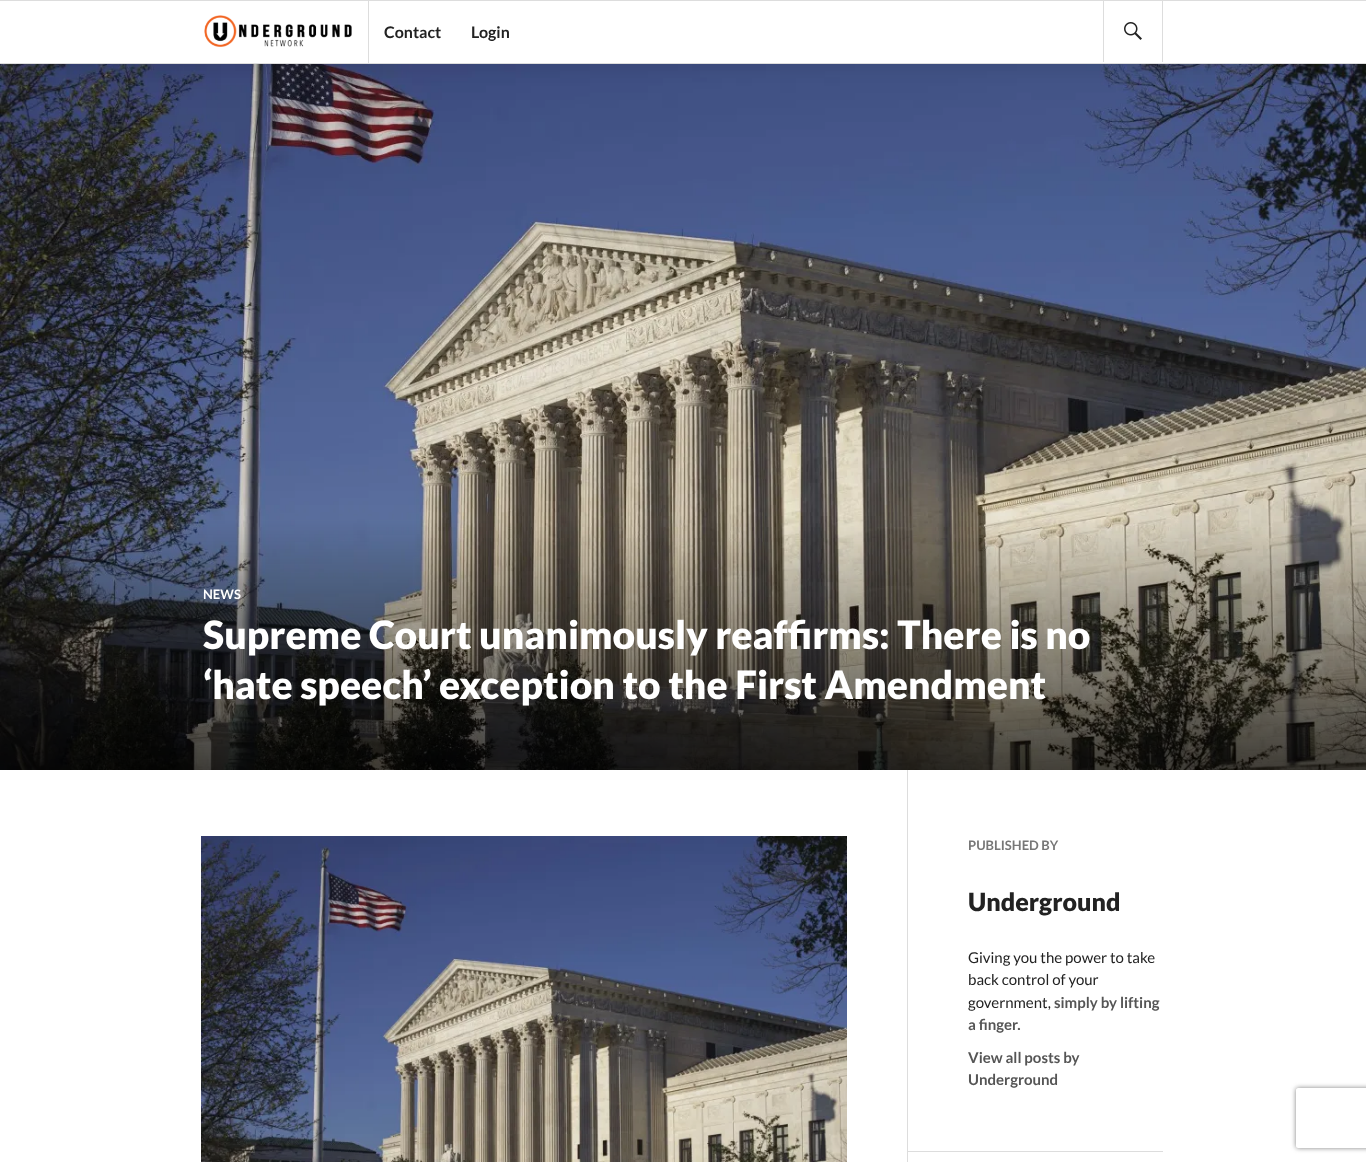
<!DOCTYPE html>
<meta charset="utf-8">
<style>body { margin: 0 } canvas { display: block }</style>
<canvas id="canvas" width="1366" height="1162"></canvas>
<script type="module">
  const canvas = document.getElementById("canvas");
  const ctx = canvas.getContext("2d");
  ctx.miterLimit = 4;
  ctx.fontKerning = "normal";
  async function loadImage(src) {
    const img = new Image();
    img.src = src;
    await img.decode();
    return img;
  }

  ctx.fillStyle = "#ffffff";
  ctx.fillRect(0, 0, 1366, 1162);
  ctx.drawImage(await loadImage("img3.png"), 0, 64, 1366, 706);
  ctx.fillStyle = "rgba(0, 0, 0, 0.07)";
  ctx.filter = "blur(7.5px)";
  ctx.beginPath();
  ctx.rect(0, 5, 1366, 64);
  ctx.fill();
  ctx.filter = "none";
  ctx.fillStyle = "#ffffff";
  ctx.fillRect(0, 1, 1366, 62);
  ctx.fillStyle = "#dddddd";
  ctx.fillRect(0, 0, 1366, 1);
  ctx.fillRect(0, 63, 1366, 1);
  ctx.drawImage(await loadImage("img1.png"), 204, 15, 148, 32);
  ctx.fillRect(368, 1, 1, 62);
  ctx.font = "bold 16px Lato";
  ctx.fillStyle = "#222222";
  ctx.fillText("Contact", 384, 38);
  ctx.fillText("Login", 471, 38);
  ctx.fillStyle = "#dddddd";
  ctx.fillRect(1162, 0, 1, 62);
  ctx.fillRect(1103, 0, 1, 62);
  ctx.drawImage(await loadImage("img2.png"), 1124, 22, 18, 18);
  ctx.font = "bold 13px Lato";
  ctx.fillStyle = "#ffffff";
  ctx.fillText("NEWS", 203, 599);
  ctx.font = "900 39px Lato";
  ctx.fillText("Supreme Court unanimously reaffirms: There is no", 203, 649);
  ctx.fillText("‘hate speech’ exception to the First Amendment", 203, 699);
  ctx.fillStyle = "#dddddd";
  ctx.fillRect(907, 770, 1, 392);
  ctx.drawImage(await loadImage("img4.png"), 201, 836, 646, 326);
  ctx.fillRect(908, 1151, 255, 1);
  ctx.font = "bold 13px Lato";
  ctx.fillStyle = "#777777";
  ctx.fillText("PUBLISHED BY", 968, 850);
  ctx.font = "900 25px Lato";
  ctx.fillStyle = "#222222";
  ctx.fillText("Underground", 968, 911);
  ctx.font = "15px Lato";
  ctx.fillText("Giving you the power to take", 968, 963);
  ctx.fillText("back control of your", 968, 985);
  ctx.fillText("government,", 968, 1008);
  ctx.font = "bold 15px Lato";
  ctx.fillStyle = "#555555";
  ctx.fillText("simply by lifting", 1054, 1008);
  ctx.fillText("a finger.", 968, 1030);
  ctx.fillText("View all posts by", 968, 1063);
  ctx.fillText("Underground", 968, 1085);
  ctx.save();
  ctx.beginPath();
  ctx.moveTo(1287, 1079);
  ctx.lineTo(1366, 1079);
  ctx.lineTo(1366, 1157);
  ctx.lineTo(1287, 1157);
  ctx.closePath();
  ctx.moveTo(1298, 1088);
  ctx.lineTo(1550, 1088);
  ctx.bezierCurveTo(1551, 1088, 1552, 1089, 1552, 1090);
  ctx.lineTo(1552, 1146);
  ctx.bezierCurveTo(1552, 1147, 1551, 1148, 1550, 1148);
  ctx.lineTo(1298, 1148);
  ctx.bezierCurveTo(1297, 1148, 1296, 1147, 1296, 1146);
  ctx.lineTo(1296, 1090);
  ctx.bezierCurveTo(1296, 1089, 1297, 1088, 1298, 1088);
  ctx.closePath();
  ctx.clip("evenodd");
  ctx.fillStyle = "#808080";
  ctx.filter = "blur(2.5px)";
  ctx.beginPath();
  ctx.roundRect(1296, 1088, 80, 60, 2);
  ctx.fill();
  ctx.filter = "none";
  ctx.restore();
</script>
